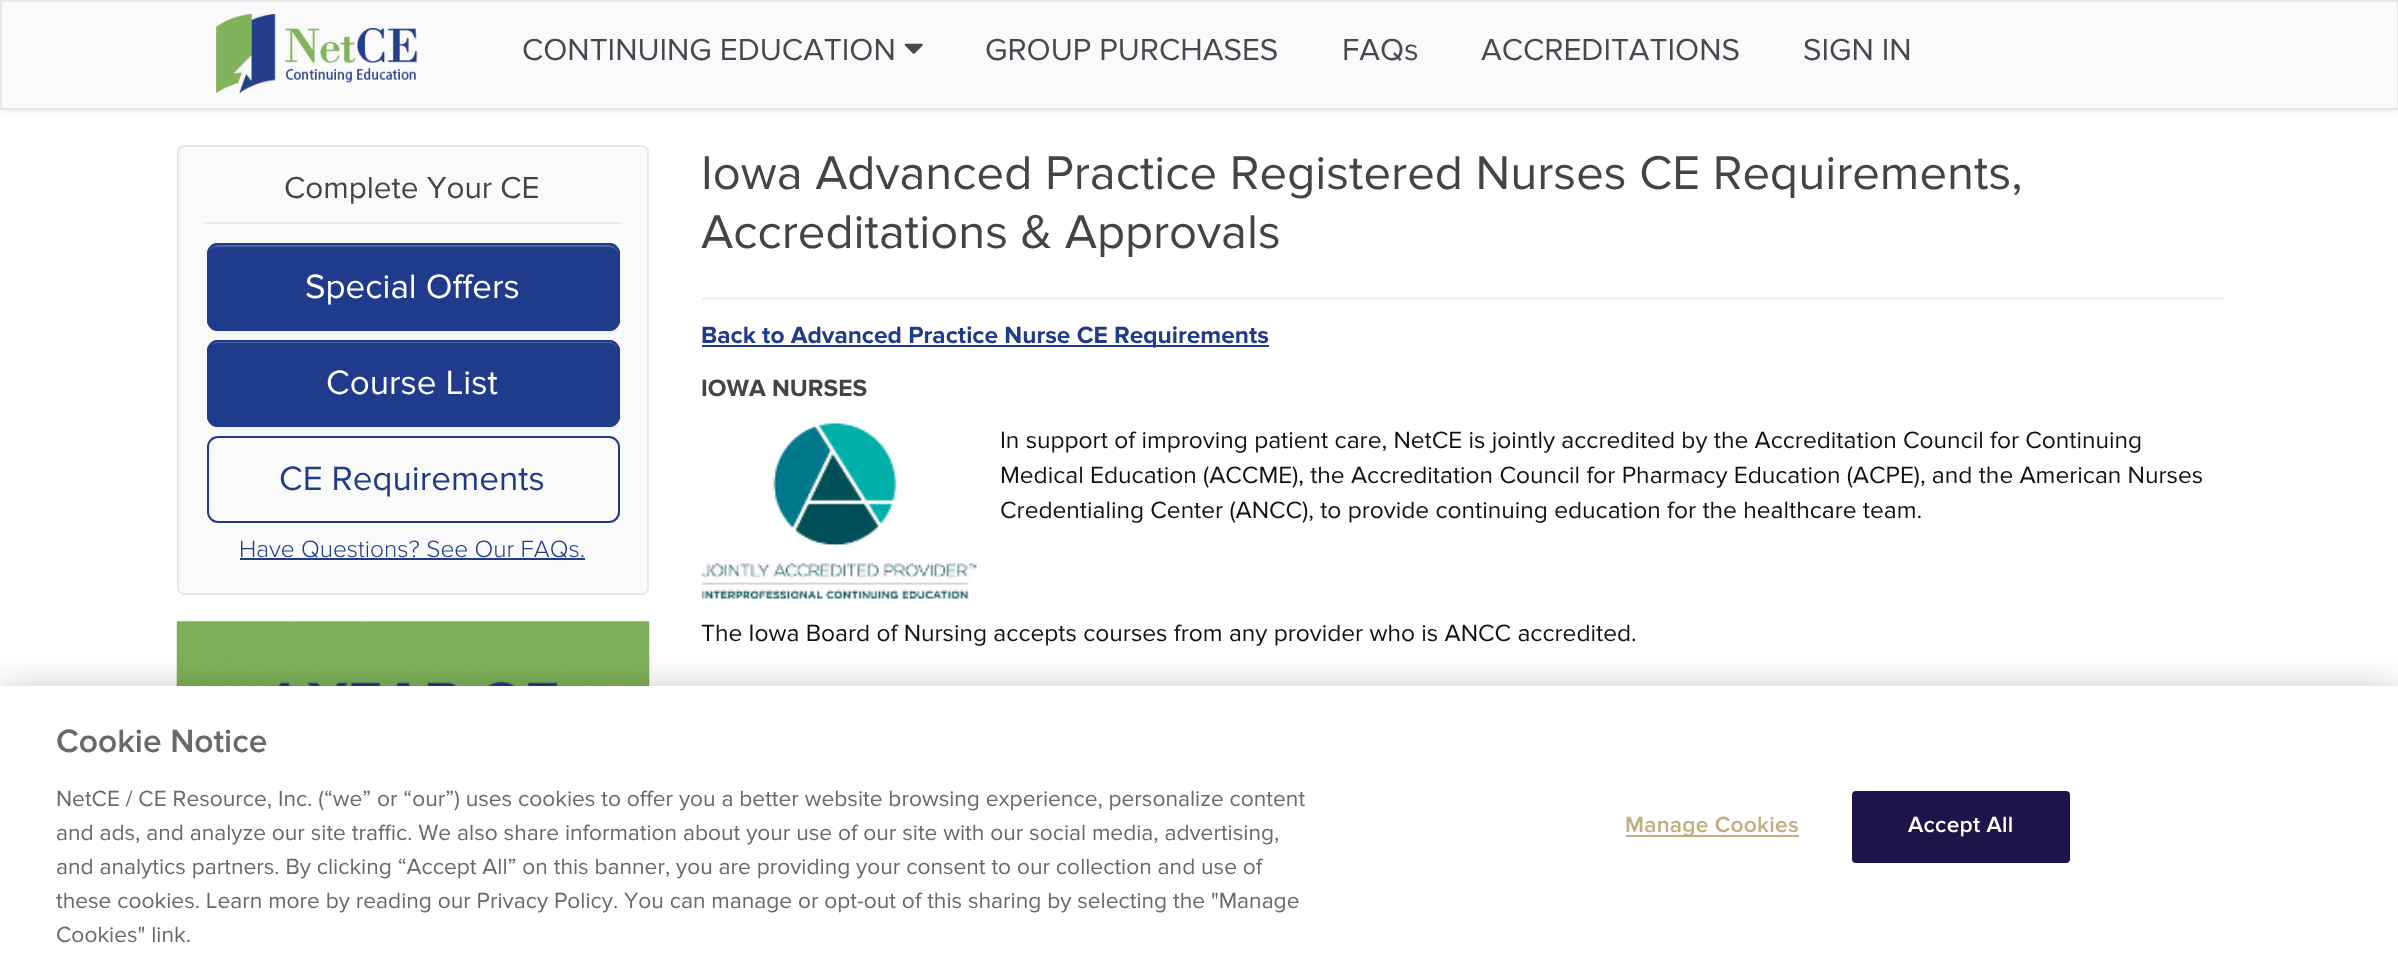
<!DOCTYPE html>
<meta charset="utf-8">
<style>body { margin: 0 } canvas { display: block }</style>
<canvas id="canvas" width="2398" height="971"></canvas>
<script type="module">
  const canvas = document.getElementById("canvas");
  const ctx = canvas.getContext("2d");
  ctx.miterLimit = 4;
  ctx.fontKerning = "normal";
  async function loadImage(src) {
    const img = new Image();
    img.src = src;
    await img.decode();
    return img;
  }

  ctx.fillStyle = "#ffffff";
  ctx.fillRect(0, 0, 2398, 971);
  ctx.fillStyle = "rgba(112, 112, 112, 0.1)";
  ctx.filter = "blur(2.5px)";
  ctx.beginPath();
  ctx.rect(0, 2, 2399, 110);
  ctx.fill();
  ctx.filter = "none";
  ctx.fillStyle = "#fafafa";
  ctx.beginPath();
  ctx.rect(1, 1, 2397, 108);
  ctx.fill();
  ctx.strokeStyle = "#e7e7e7";
  ctx.lineWidth = 2;
  ctx.stroke();
  ctx.drawImage(await loadImage("img1.png"), 216, 14, 202, 79);
  ctx.font = "31.5px Proxima Nova";
  ctx.fillStyle = "#454951";
  ctx.fillText("CONTINUING EDUCATION", 522, 60);
  ctx.drawImage(await loadImage("img2.png"), 904, 43, 19, 11);
  ctx.fillText("GROUP PURCHASES", 985, 60);
  ctx.fillText("FAQs", 1342, 60);
  ctx.fillText("ACCREDITATIONS", 1481, 60);
  ctx.fillText("SIGN IN", 1803, 60);
  ctx.fillStyle = "#fafafa";
  ctx.beginPath();
  ctx.roundRect(178, 146, 470, 448, 6);
  ctx.fill();
  ctx.stroke();
  ctx.fillStyle = "#444444";
  ctx.fillText("Complete Your CE", 284, 198);
  ctx.fillStyle = "#e7e7e7";
  ctx.fillRect(205, 222, 416, 2);
  ctx.fillStyle = "rgba(0, 0, 0, 0.05)";
  ctx.filter = "blur(2px)";
  ctx.beginPath();
  ctx.roundRect(207, 245, 413, 88, 11);
  ctx.fill();
  ctx.filter = "none";
  ctx.fillStyle = "#213b8c";
  ctx.beginPath();
  ctx.roundRect(207, 243, 413, 88, 11);
  ctx.fill();
  ctx.fillStyle = "#4d62a3";
  ctx.beginPath();
  ctx.moveTo(217, 247);
  ctx.lineTo(609, 247);
  ctx.bezierCurveTo(614, 247, 618, 251, 618, 256);
  ctx.bezierCurveTo(618, 250, 615, 245, 609, 245);
  ctx.lineTo(215, 245);
  ctx.bezierCurveTo(210, 246, 208, 251, 208, 256);
  ctx.bezierCurveTo(208, 251, 212, 247, 217, 247);
  ctx.closePath();
  ctx.fill();
  ctx.beginPath();
  ctx.roundRect(208, 244, 411, 86, 10);
  ctx.strokeStyle = "#213b8c";
  ctx.stroke();
  ctx.font = "35px Proxima Nova";
  ctx.fillStyle = "#ffffff";
  ctx.fillText("Special Offers", 305, 298);
  ctx.fillStyle = "rgba(0, 0, 0, 0.05)";
  ctx.filter = "blur(2px)";
  ctx.beginPath();
  ctx.roundRect(207, 341, 413, 88, 11);
  ctx.fill();
  ctx.filter = "none";
  ctx.fillStyle = "#213b8c";
  ctx.beginPath();
  ctx.roundRect(207, 340, 413, 87, 11);
  ctx.fill();
  ctx.fillStyle = "rgba(255, 255, 255, 0.2)";
  ctx.beginPath();
  ctx.moveTo(217, 343);
  ctx.lineTo(609, 343);
  ctx.bezierCurveTo(614, 343, 618, 347, 618, 352);
  ctx.bezierCurveTo(618, 346, 615, 341, 609, 341);
  ctx.lineTo(215, 341);
  ctx.bezierCurveTo(210, 342, 208, 347, 208, 352);
  ctx.bezierCurveTo(208, 347, 212, 343, 217, 343);
  ctx.closePath();
  ctx.fill();
  ctx.beginPath();
  ctx.roundRect(208, 341, 411, 85, 10);
  ctx.stroke();
  ctx.fillStyle = "#ffffff";
  ctx.fillText("Course List", 326, 394);
  ctx.beginPath();
  ctx.roundRect(208, 437, 411, 85, 10);
  ctx.stroke();
  ctx.fillStyle = "#213b8c";
  ctx.fillText("CE Requirements", 279, 490);
  ctx.font = "300 24.5px Proxima Nova";
  ctx.fillText("Have Questions? See Our FAQs.", 239, 557);
  ctx.fillRect(240, 558, 345, 2);
  ctx.drawImage(await loadImage("img3.png"), 176, 621, 474, 65);
  ctx.font = "49px Proxima Nova";
  ctx.fillStyle = "#444444";
  ctx.fillText("Iowa Advanced Practice Registered Nurses CE Requirements,", 701, 189);
  ctx.fillText("Accreditations & Approvals", 701, 248);
  ctx.fillStyle = "#e7e7e7";
  ctx.fillRect(702, 298, 1521, 1);
  ctx.fillStyle = "#fafafa";
  ctx.fillRect(702, 299, 1521, 2);
  ctx.fillStyle = "#213b8c";
  ctx.fillRect(702, 345, 567, 2);
  ctx.font = "bold 24.5px Proxima Nova";
  ctx.fillText("Back to Advanced Practice Nurse CE Requirements", 701, 343);
  ctx.fillStyle = "#444444";
  ctx.fillText("IOWA NURSES", 701, 396);
  ctx.drawImage(await loadImage("img4.png"), 701, 423, 276, 176);
  ctx.font = "24.5px Proxima Nova";
  ctx.fillStyle = "#111111";
  ctx.fillText("In support of improving patient care, NetCE is jointly accredited by the Accreditation Council for Continuing", 1000, 448);
  ctx.fillText("Medical Education (ACCME), the Accreditation Council for Pharmacy Education (ACPE), and the American Nurses", 1000, 483);
  ctx.fillText("Credentialing Center (ANCC), to provide continuing education for the healthcare team.", 1000, 518);
  ctx.fillText("The Iowa Board of Nursing accepts courses from any provider who is ANCC accredited.", 701, 641);
  ctx.fillStyle = "rgba(0, 0, 0, 0.2)";
  ctx.filter = "blur(16px)";
  ctx.beginPath();
  ctx.rect(0, 686, 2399, 285);
  ctx.fill();
  ctx.filter = "none";
  ctx.fillStyle = "#ffffff";
  ctx.fillRect(0, 686, 2398, 285);
  ctx.font = "600 33.5px Proxima Nova";
  ctx.fillStyle = "#696969";
  ctx.fillText("Cookie Notice", 56, 752);
  ctx.font = "22.75px Proxima Nova";
  ctx.fillText("NetCE / CE Resource, Inc. (“we” or “our”) uses cookies to offer you a better website browsing experience, personalize content", 56, 806);
  ctx.fillText("and ads, and analyze our site traffic. We also share information about your use of our site with our social media, advertising,", 56, 840);
  ctx.fillText("and analytics partners. By clicking “Accept All” on this banner, you are providing your consent to our collection and use of", 56, 874);
  ctx.fillText("these cookies. Learn more by reading our Privacy Policy. You can manage or opt-out of this sharing by selecting the \"Manage", 56, 908);
  ctx.fillText("Cookies\" link.", 56, 942);
  ctx.fillStyle = "#c1ad80";
  ctx.fillRect(1626, 835, 173, 2);
  ctx.letterSpacing = "0.25px";
  ctx.font = "600 22.75px Proxima Nova";
  ctx.fillText("Manage Cookies", 1625, 832);
  ctx.fillStyle = "#1b1549";
  ctx.beginPath();
  ctx.roundRect(1853, 792, 216, 70, 3);
  ctx.fill();
  ctx.strokeStyle = "#1b1549";
  ctx.stroke();
  ctx.fillStyle = "#ffffff";
  ctx.fillText("Accept All", 1908, 832);
</script>
